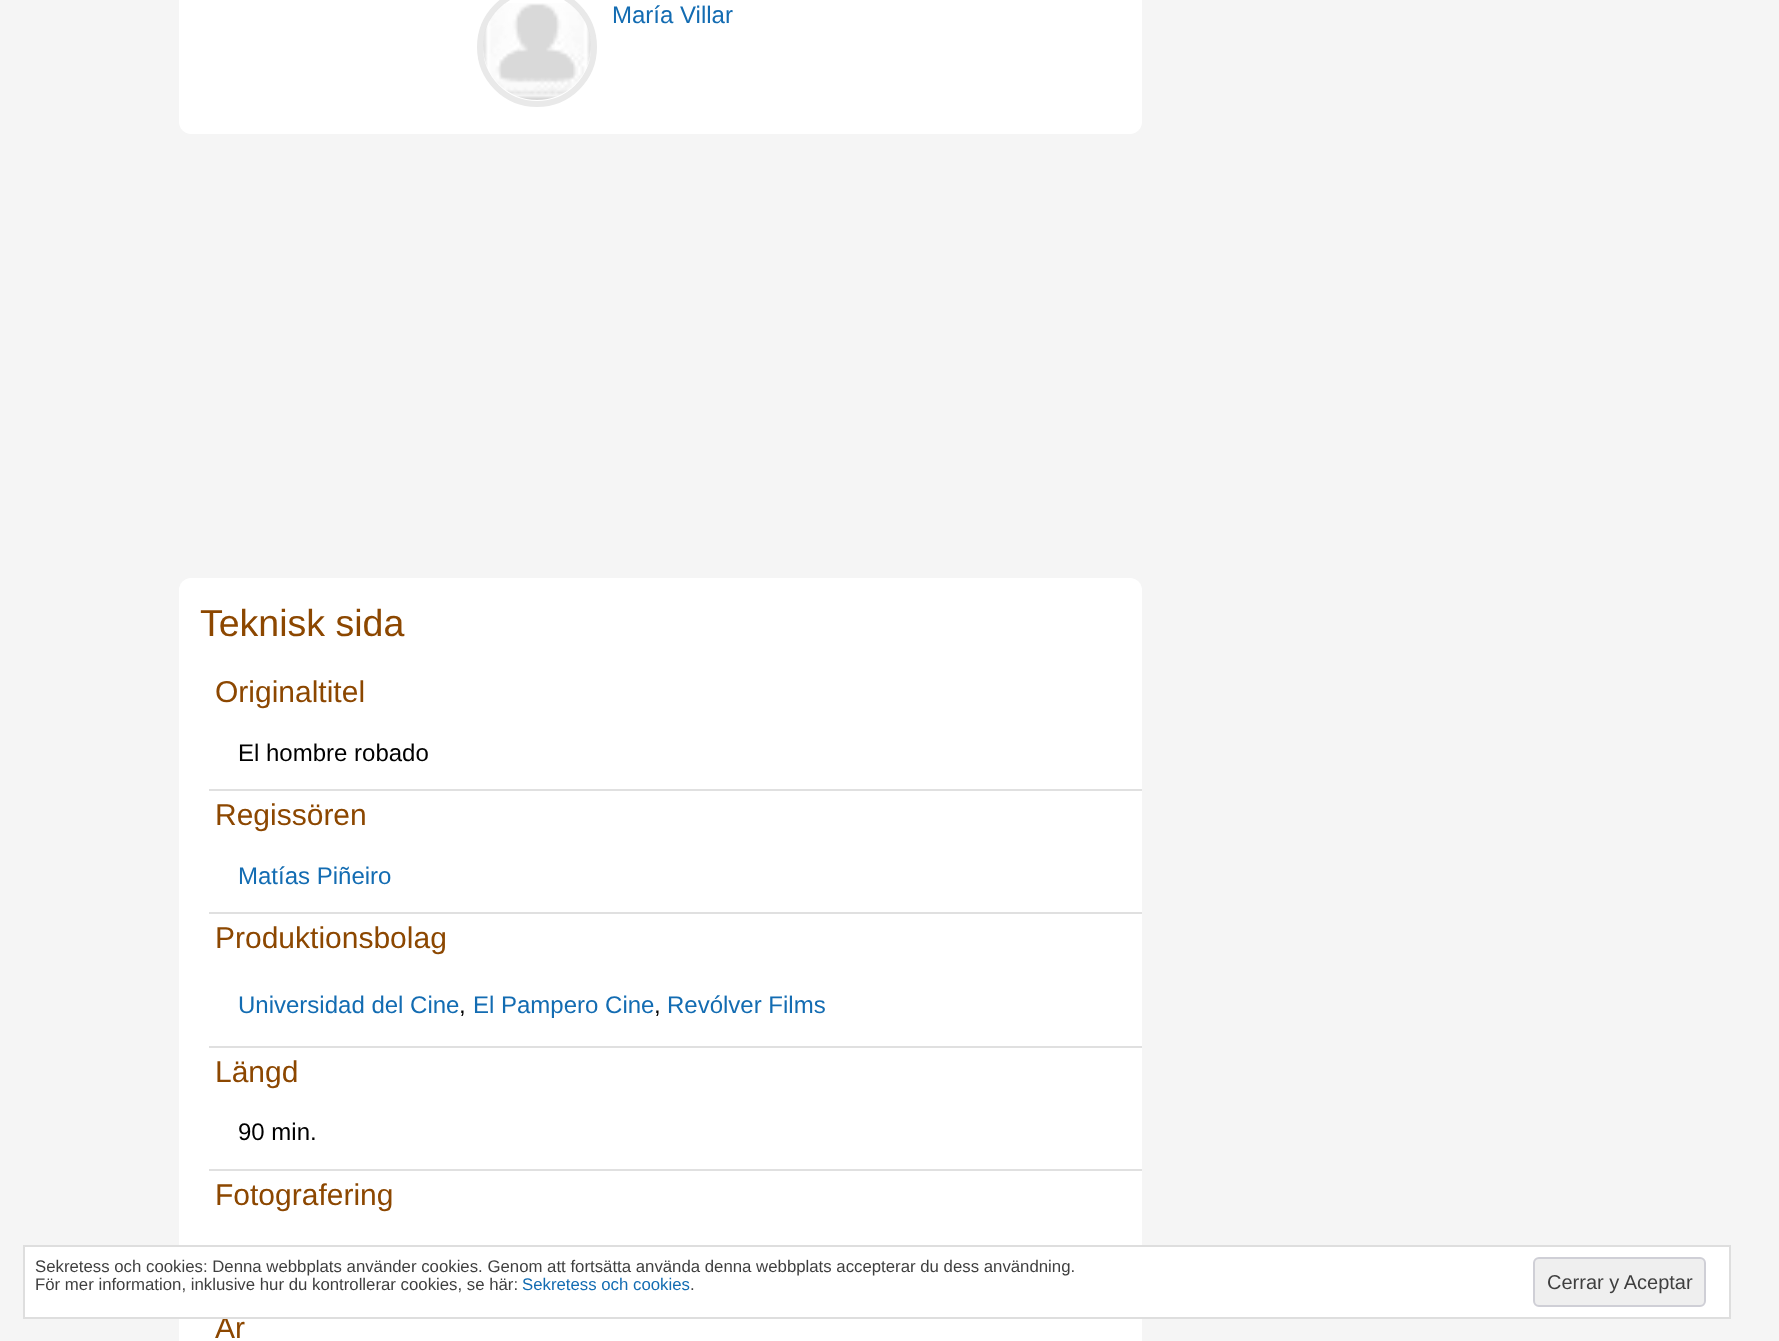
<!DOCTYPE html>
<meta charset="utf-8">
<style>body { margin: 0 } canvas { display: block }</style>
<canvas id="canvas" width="1779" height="1341"></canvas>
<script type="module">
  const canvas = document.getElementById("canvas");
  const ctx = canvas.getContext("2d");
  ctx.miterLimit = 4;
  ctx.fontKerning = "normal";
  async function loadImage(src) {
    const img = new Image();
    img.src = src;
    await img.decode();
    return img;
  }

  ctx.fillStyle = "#f5f5f5";
  ctx.fillRect(0, 0, 1779, 1341);
  ctx.fillStyle = "#ffffff";
  ctx.beginPath();
  ctx.moveTo(179, -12);
  ctx.lineTo(1142, -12);
  ctx.lineTo(1142, 122);
  ctx.bezierCurveTo(1142, 128.5, 1136.5, 134, 1130, 134);
  ctx.lineTo(191, 134);
  ctx.bezierCurveTo(184.5, 134, 179, 128.5, 179, 122);
  ctx.closePath();
  ctx.fill();
  ctx.beginPath();
  ctx.arc(537, 47, 57, 0, Math.PI * 2);
  ctx.strokeStyle = "#e9e9e9";
  ctx.lineWidth = 6;
  ctx.stroke();
  ctx.drawImage(await loadImage("img1.png"), 483, 3, 108, 97);
  ctx.font = "24px Liberation Sans";
  ctx.fillStyle = "#136cb2";
  ctx.fillText("María Villar", 612, 23);
  ctx.fillStyle = "#ffffff";
  ctx.beginPath();
  ctx.roundRect(179, 578, 963, 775, 12);
  ctx.fill();
  ctx.font = "37.5px Liberation Sans";
  ctx.fillStyle = "#8c4700";
  ctx.fillText("Teknisk sida", 200, 636);
  ctx.font = "30px Liberation Sans";
  ctx.fillText("Originaltitel", 215, 702);
  ctx.fillStyle = "#e0e0e0";
  ctx.fillRect(209, 789, 933, 2);
  ctx.font = "24px Liberation Sans";
  ctx.fillStyle = "#000000";
  ctx.fillText("El hombre robado", 238, 761);
  ctx.font = "30px Liberation Sans";
  ctx.fillStyle = "#8c4700";
  ctx.fillText("Regissören", 215, 825);
  ctx.fillStyle = "#e0e0e0";
  ctx.fillRect(209, 912, 933, 2);
  ctx.font = "24px Liberation Sans";
  ctx.fillStyle = "#136cb2";
  ctx.fillText("Matías Piñeiro", 238, 884);
  ctx.font = "30px Liberation Sans";
  ctx.fillStyle = "#8c4700";
  ctx.fillText("Produktionsbolag", 215, 948);
  ctx.fillStyle = "#e0e0e0";
  ctx.fillRect(209, 1046, 933, 2);
  ctx.font = "24px Liberation Sans";
  ctx.fillStyle = "#136cb2";
  ctx.fillText("Universidad del Cine", 238, 1013);
  ctx.fillStyle = "#000000";
  ctx.fillText(",", 459, 1013);
  ctx.fillStyle = "#136cb2";
  ctx.fillText("El Pampero Cine", 473, 1013);
  ctx.fillStyle = "#000000";
  ctx.fillText(",", 654, 1013);
  ctx.fillStyle = "#136cb2";
  ctx.fillText("Revólver Films", 667, 1013);
  ctx.font = "30px Liberation Sans";
  ctx.fillStyle = "#8c4700";
  ctx.fillText("Längd", 215, 1082);
  ctx.fillStyle = "#e0e0e0";
  ctx.fillRect(209, 1169, 933, 2);
  ctx.font = "24px Liberation Sans";
  ctx.fillStyle = "#000000";
  ctx.fillText("90 min.", 238, 1140);
  ctx.font = "30px Liberation Sans";
  ctx.fillStyle = "#8c4700";
  ctx.fillText("Fotografering", 215, 1205);
  ctx.fillText("År", 215, 1338);
  ctx.fillStyle = "#ffffff";
  ctx.beginPath();
  ctx.rect(24, 1246, 1706, 72);
  ctx.fill();
  ctx.strokeStyle = "#dedede";
  ctx.lineWidth = 2;
  ctx.stroke();
  ctx.font = "16.8px Liberation Sans";
  ctx.fillStyle = "#3f3f3f";
  ctx.fillText("Sekretess och cookies: Denna webbplats använder cookies. Genom att fortsätta använda denna webbplats accepterar du dess användning.", 35, 1272);
  ctx.fillText("För mer information, inklusive hur du kontrollerar cookies, se här:", 35, 1290);
  ctx.fillStyle = "#136cb2";
  ctx.fillText("Sekretess och cookies", 522, 1290);
  ctx.fillStyle = "#3f3f3f";
  ctx.fillText(".", 690, 1290);
  ctx.fillStyle = "#efefef";
  ctx.beginPath();
  ctx.roundRect(1534, 1258, 171, 48, 5);
  ctx.fill();
  ctx.strokeStyle = "#cfcfd6";
  ctx.stroke();
  ctx.font = "20px Liberation Sans";
  ctx.fillStyle = "#3f3f3f";
  ctx.fillText("Cerrar y Aceptar", 1547, 1289);
</script>
